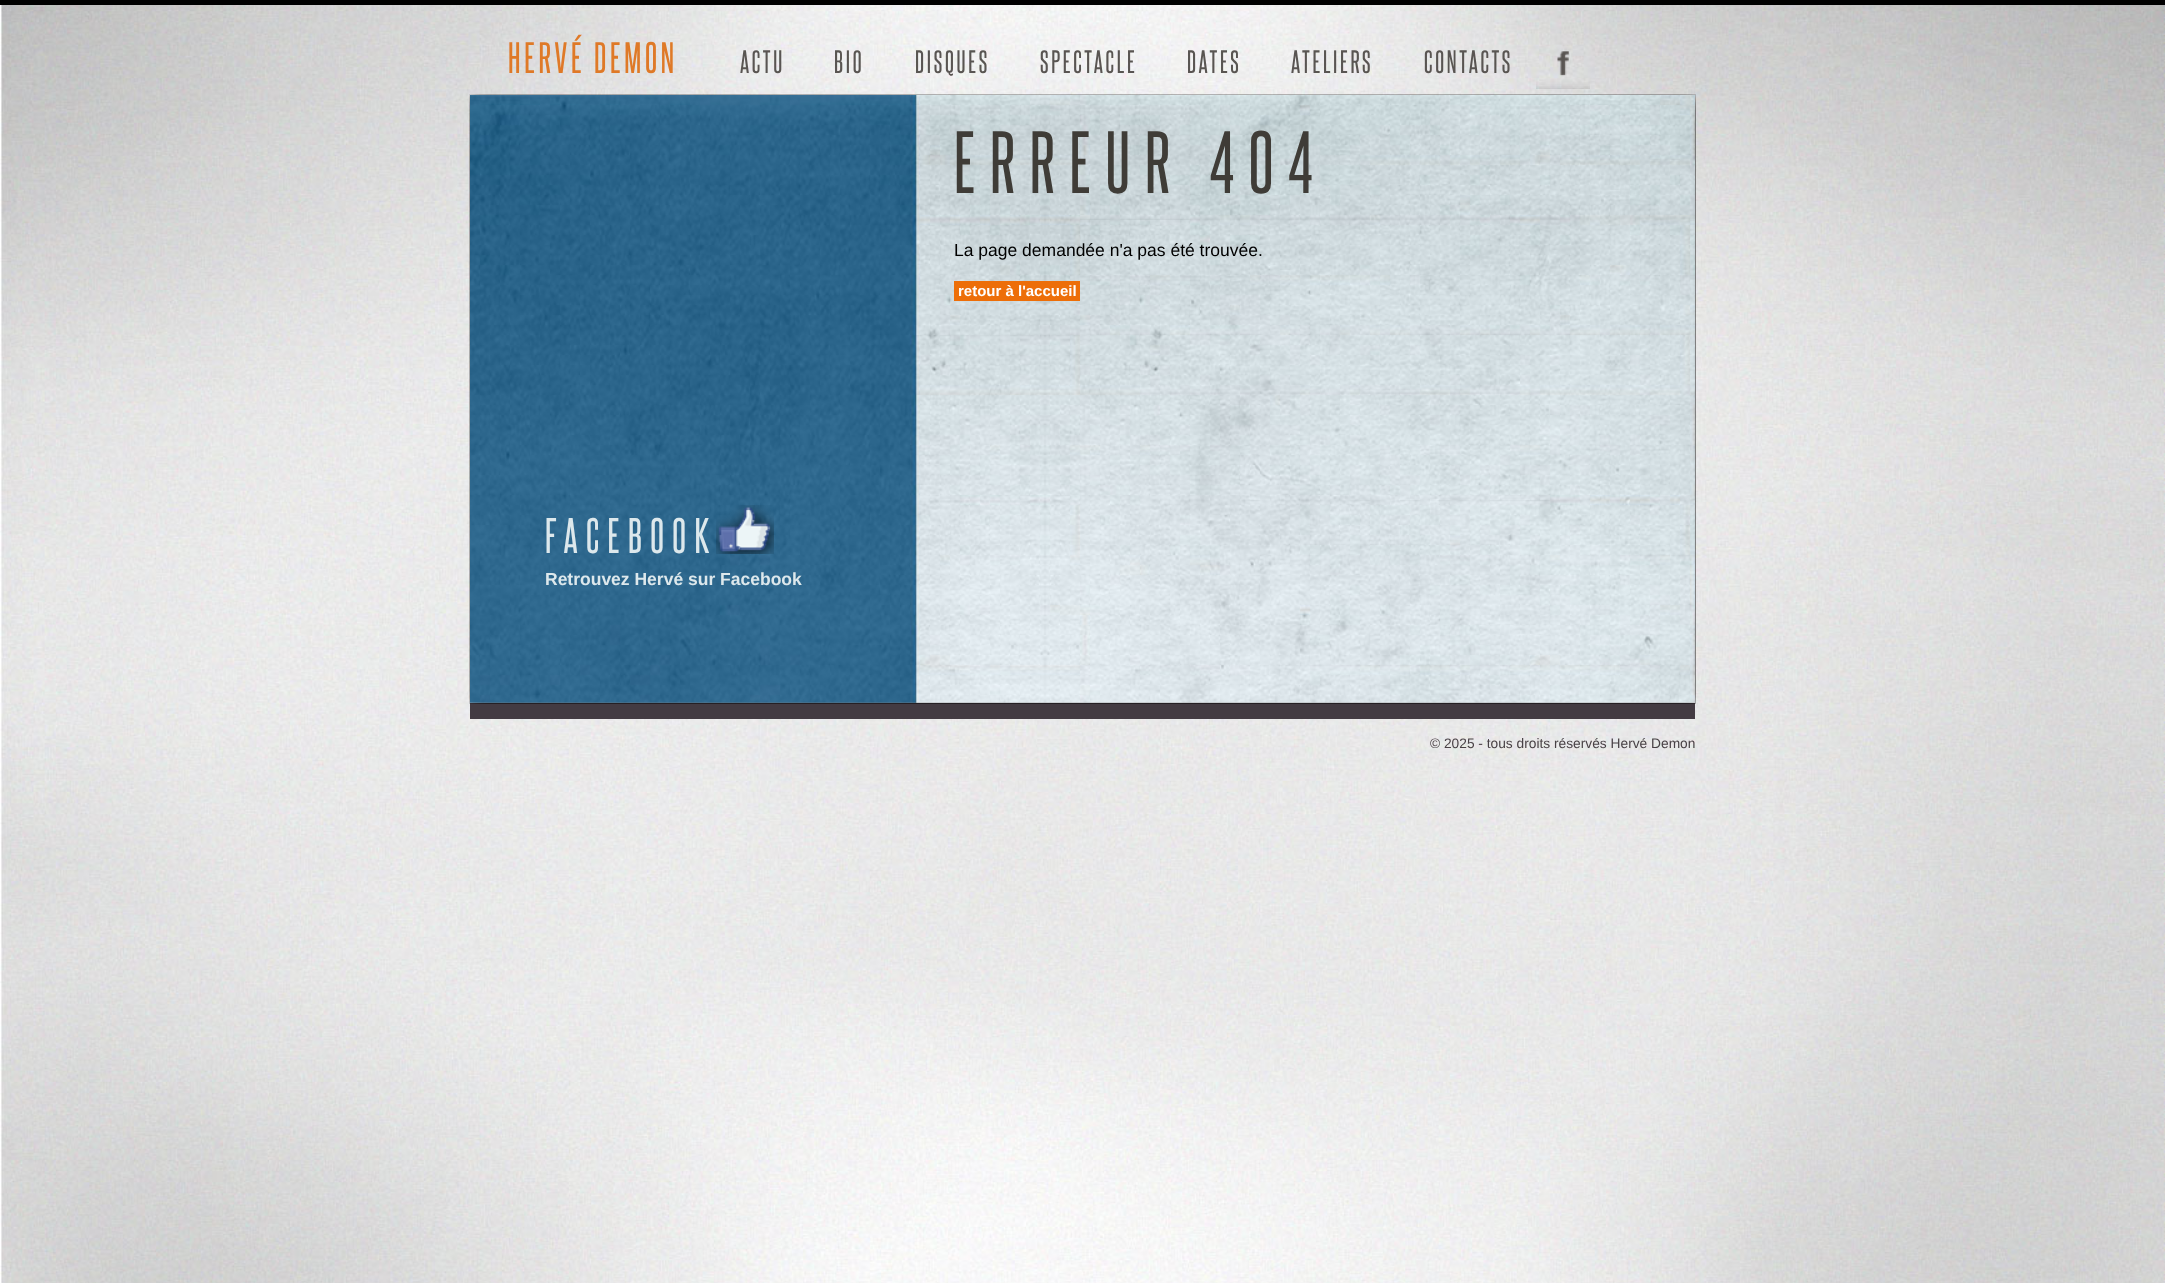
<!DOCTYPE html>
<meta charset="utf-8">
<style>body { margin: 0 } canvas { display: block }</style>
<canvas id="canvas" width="2165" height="1283"></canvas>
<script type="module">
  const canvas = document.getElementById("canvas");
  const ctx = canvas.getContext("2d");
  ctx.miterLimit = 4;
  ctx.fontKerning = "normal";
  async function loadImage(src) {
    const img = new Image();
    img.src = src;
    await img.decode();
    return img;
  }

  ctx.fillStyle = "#ffffff";
  ctx.fillRect(0, 0, 2165, 1283);
  ctx.drawImage(await loadImage("img1.png"), 0, 5, 2165, 1278);
  ctx.fillStyle = "#000000";
  ctx.fillRect(0, 0, 2165, 5);
  ctx.letterSpacing = "3.75px";
  ctx.font = "37.5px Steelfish";
  ctx.fillStyle = "#df7927";
  ctx.fillText("HERVÉ DEMON", 508, 73);
  ctx.letterSpacing = "2.75px";
  ctx.font = "27.5px Steelfish";
  ctx.fillStyle = "#595552";
  ctx.fillText("ACTU", 740, 73);
  ctx.fillText("BIO", 834, 73);
  ctx.fillText("DISQUES", 915, 73);
  ctx.fillText("SPECTACLE", 1040, 73);
  ctx.fillText("DATES", 1187, 73);
  ctx.fillText("ATELIERS", 1291, 73);
  ctx.fillText("CONTACTS", 1424, 73);
  ctx.drawImage(await loadImage("img2.png"), 1536, 51, 54, 38);
  ctx.fillStyle = "#433b42";
  ctx.fillRect(470, 703, 1225, 16);
  ctx.drawImage(await loadImage("img3.png"), 469, 94, 1227, 610);
  ctx.letterSpacing = "15px";
  ctx.font = "75px Steelfish";
  ctx.fillStyle = "#3f3c37";
  ctx.fillText("ERREUR 404", 954, 193);
  ctx.letterSpacing = "0px";
  ctx.font = "17.5px Liberation Sans";
  ctx.fillStyle = "#000000";
  ctx.fillText("La page demandée n'a pas été trouvée.", 954, 256);
  ctx.fillStyle = "#ed6e08";
  ctx.fillRect(954, 281, 126, 20);
  ctx.font = "bold 15px Liberation Sans";
  ctx.fillStyle = "#ffffff";
  ctx.fillText("retour à l'accueil", 958, 296);
  ctx.letterSpacing = "8.5px";
  ctx.font = "42.5px Steelfish";
  ctx.fillStyle = "#dde8ec";
  ctx.fillText("FACEBOOK", 545, 553);
  ctx.drawImage(await loadImage("img4.png"), 716, 505, 58, 49);
  ctx.letterSpacing = "0px";
  ctx.font = "bold 17.5px Liberation Sans";
  ctx.fillText("Retrouvez Hervé sur Facebook", 545, 585);
  ctx.font = "13.75px Liberation Sans";
  ctx.fillStyle = "#484145";
  ctx.fillText("© 2025 - tous droits réservés Hervé Demon", 1430, 748);
</script>
